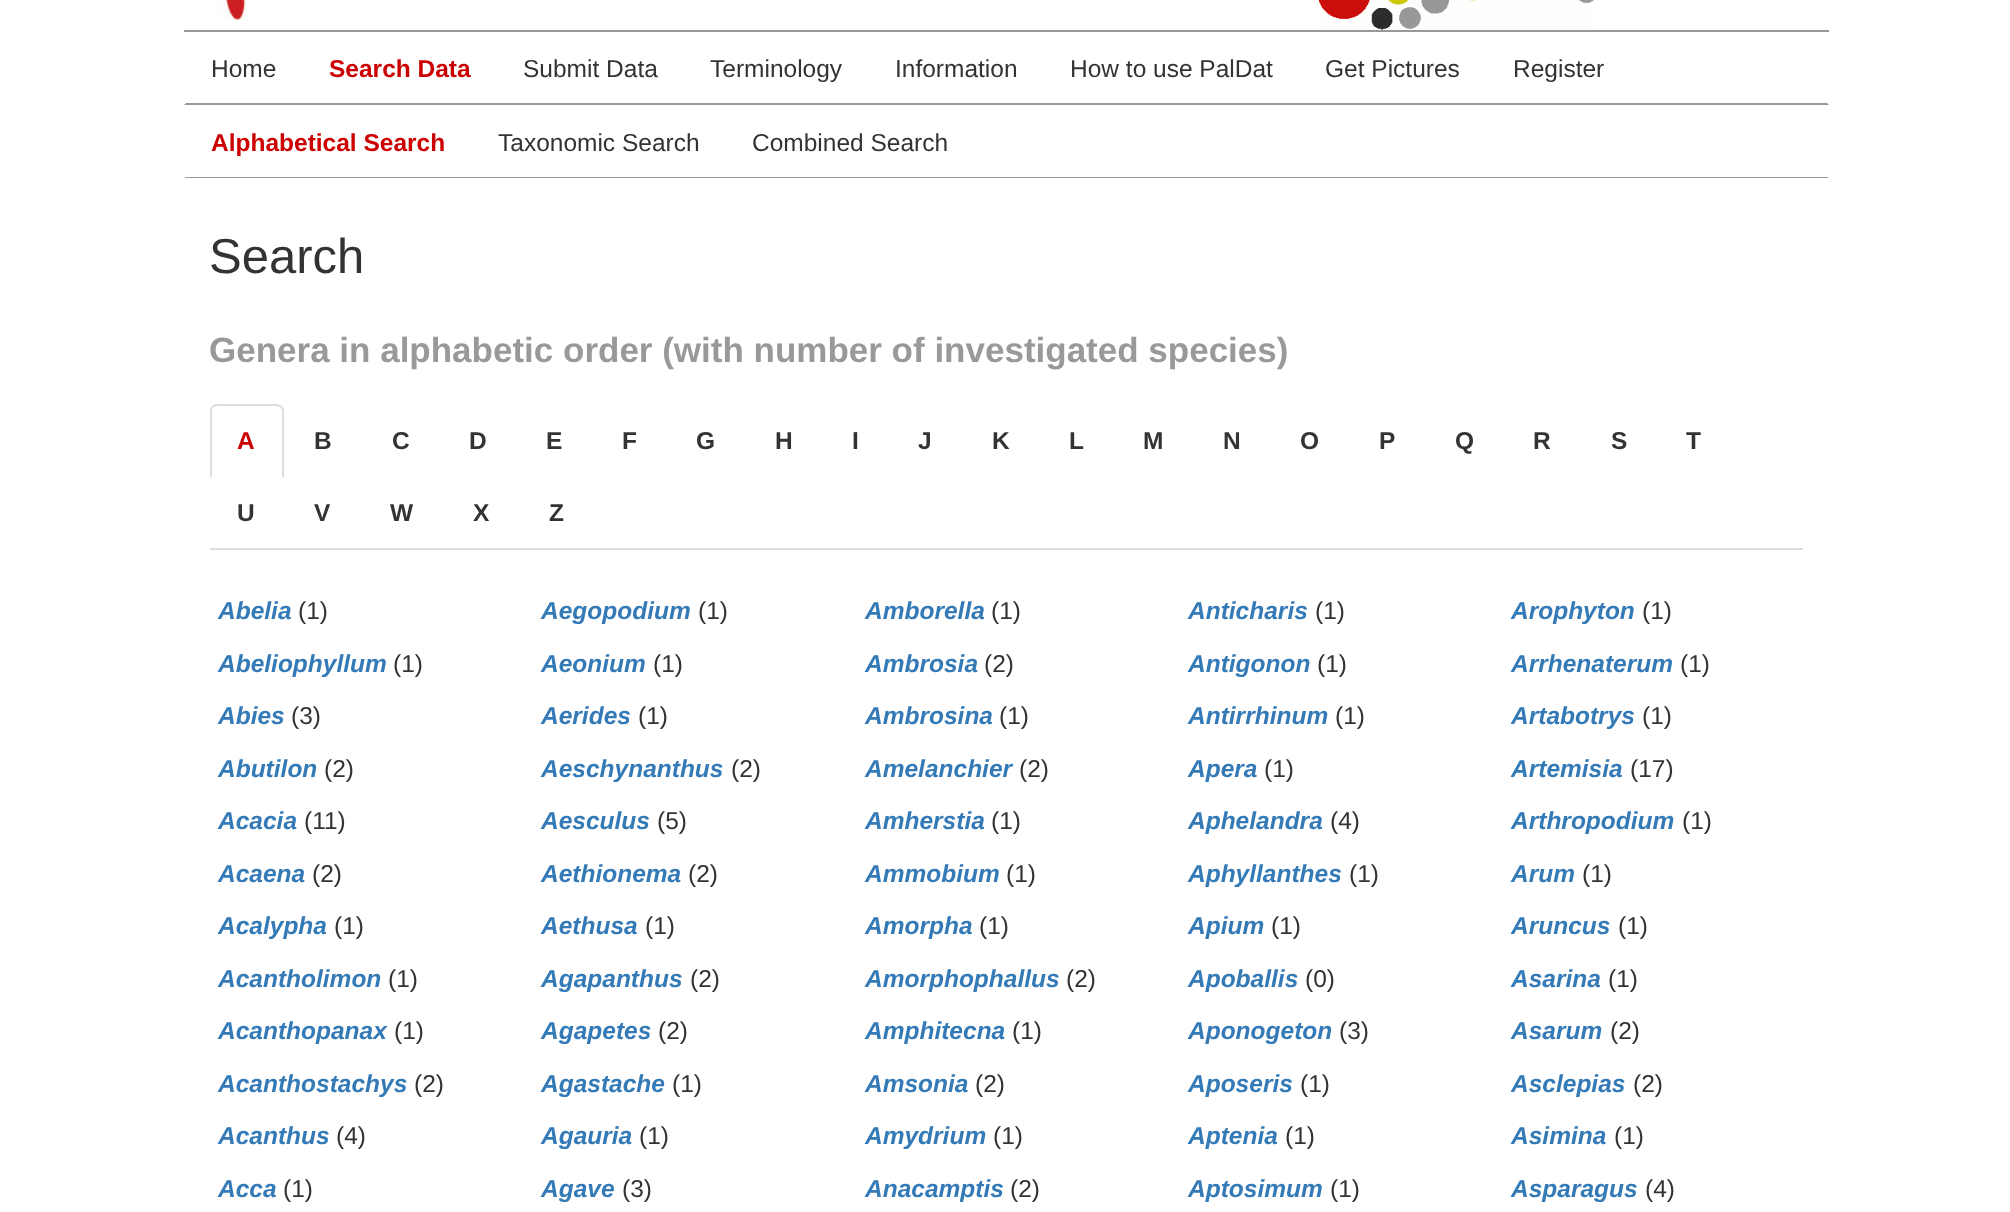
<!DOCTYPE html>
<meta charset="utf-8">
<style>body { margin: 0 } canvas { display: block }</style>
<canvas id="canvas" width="2010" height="1212"></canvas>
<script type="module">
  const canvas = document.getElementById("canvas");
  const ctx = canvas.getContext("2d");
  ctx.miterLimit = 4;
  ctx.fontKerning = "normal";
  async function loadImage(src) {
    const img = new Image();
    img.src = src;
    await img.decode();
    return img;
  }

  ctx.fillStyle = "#ffffff";
  ctx.fillRect(0, 0, 2010, 1212);
  ctx.drawImage(await loadImage("img1.png"), 1319, 0, 275, 30);
  ctx.fillStyle = "#999999";
  ctx.fillRect(184, 30, 1645, 2);
  ctx.drawImage(await loadImage("img2.png"), 220, 0, 28, 21);
  ctx.beginPath();
  ctx.moveTo(1829, 105);
  ctx.lineTo(184, 105);
  ctx.lineTo(186, 103);
  ctx.lineTo(1827, 103);
  ctx.closePath();
  ctx.fill();
  ctx.font = "24.5px Liberation Sans";
  ctx.fillStyle = "#333333";
  ctx.fillText("Home", 211, 77);
  ctx.font = "bold 24.5px Liberation Sans";
  ctx.fillStyle = "#cc0000";
  ctx.fillText("Search Data", 329, 77);
  ctx.font = "24.5px Liberation Sans";
  ctx.fillStyle = "#333333";
  ctx.fillText("Submit Data", 523, 77);
  ctx.fillText("Terminology", 710, 77);
  ctx.fillText("Information", 895, 77);
  ctx.fillText("How to use PalDat", 1070, 77);
  ctx.fillText("Get Pictures", 1325, 77);
  ctx.fillText("Register", 1513, 77);
  ctx.fillStyle = "#999999";
  ctx.beginPath();
  ctx.moveTo(1829, 178);
  ctx.lineTo(184, 178);
  ctx.lineTo(186, 177);
  ctx.lineTo(1827, 177);
  ctx.closePath();
  ctx.fill();
  ctx.font = "bold 24.5px Liberation Sans";
  ctx.fillStyle = "#cc0000";
  ctx.fillText("Alphabetical Search", 211, 151);
  ctx.font = "24.5px Liberation Sans";
  ctx.fillStyle = "#333333";
  ctx.fillText("Taxonomic Search", 498, 151);
  ctx.fillText("Combined Search", 752, 151);
  ctx.font = "49px Liberation Sans";
  ctx.fillText("Search", 209, 273);
  ctx.font = "bold 35px Liberation Sans";
  ctx.fillStyle = "#999999";
  ctx.fillText("Genera in alphabetic order (with number of investigated species)", 209, 362);
  ctx.fillStyle = "#dddddd";
  ctx.fillRect(210, 548, 1593, 2);
  ctx.beginPath();
  ctx.moveTo(217, 406);
  ctx.bezierCurveTo(215, 406, 214, 407, 213, 408);
  ctx.lineTo(212, 406);
  ctx.lineTo(215, 404);
  ctx.lineTo(278, 404);
  ctx.lineTo(282, 406);
  ctx.lineTo(280, 407);
  ctx.bezierCurveTo(279, 407, 278, 406, 276, 406);
  ctx.closePath();
  ctx.fill();
  ctx.beginPath();
  ctx.moveTo(282, 406);
  ctx.lineTo(284, 409);
  ctx.lineTo(284, 478);
  ctx.lineTo(282, 476);
  ctx.lineTo(282, 410);
  ctx.lineTo(280, 407);
  ctx.closePath();
  ctx.fill();
  ctx.beginPath();
  ctx.moveTo(210, 478);
  ctx.lineTo(212, 476);
  ctx.lineTo(212, 411);
  ctx.bezierCurveTo(212, 410, 212, 408, 213, 408);
  ctx.lineTo(212, 406);
  ctx.bezierCurveTo(211, 407, 210, 409, 210, 411);
  ctx.closePath();
  ctx.fill();
  ctx.font = "bold 24.5px Liberation Sans";
  ctx.fillStyle = "#cc0000";
  ctx.fillText("A", 237, 449);
  ctx.fillStyle = "#333333";
  ctx.fillText("B", 314, 449);
  ctx.fillText("C", 392, 449);
  ctx.fillText("D", 469, 449);
  ctx.fillText("E", 546, 449);
  ctx.fillText("F", 622, 449);
  ctx.fillText("G", 696, 449);
  ctx.fillText("H", 775, 449);
  ctx.fillText("I", 852, 449);
  ctx.fillText("J", 918, 449);
  ctx.fillText("K", 992, 449);
  ctx.fillText("L", 1069, 449);
  ctx.fillText("M", 1143, 449);
  ctx.fillText("N", 1223, 449);
  ctx.fillText("O", 1300, 449);
  ctx.fillText("P", 1379, 449);
  ctx.fillText("Q", 1455, 449);
  ctx.fillText("R", 1533, 449);
  ctx.fillText("S", 1611, 449);
  ctx.fillText("T", 1686, 449);
  ctx.fillText("U", 237, 521);
  ctx.fillText("V", 314, 521);
  ctx.fillText("W", 390, 521);
  ctx.fillText("X", 473, 521);
  ctx.fillText("Z", 549, 521);
  ctx.font = "italic bold 24.5px Liberation Sans";
  ctx.fillStyle = "#337ab7";
  ctx.fillText("Abelia", 218, 619);
  ctx.font = "24.5px Liberation Sans";
  ctx.fillStyle = "#333333";
  ctx.fillText("(1)", 298, 619);
  ctx.font = "italic bold 24.5px Liberation Sans";
  ctx.fillStyle = "#337ab7";
  ctx.fillText("Aegopodium", 541, 619);
  ctx.font = "24.5px Liberation Sans";
  ctx.fillStyle = "#333333";
  ctx.fillText("(1)", 698, 619);
  ctx.font = "italic bold 24.5px Liberation Sans";
  ctx.fillStyle = "#337ab7";
  ctx.fillText("Amborella", 865, 619);
  ctx.font = "24.5px Liberation Sans";
  ctx.fillStyle = "#333333";
  ctx.fillText("(1)", 991, 619);
  ctx.font = "italic bold 24.5px Liberation Sans";
  ctx.fillStyle = "#337ab7";
  ctx.fillText("Anticharis", 1188, 619);
  ctx.font = "24.5px Liberation Sans";
  ctx.fillStyle = "#333333";
  ctx.fillText("(1)", 1315, 619);
  ctx.font = "italic bold 24.5px Liberation Sans";
  ctx.fillStyle = "#337ab7";
  ctx.fillText("Arophyton", 1511, 619);
  ctx.font = "24.5px Liberation Sans";
  ctx.fillStyle = "#333333";
  ctx.fillText("(1)", 1642, 619);
  ctx.font = "italic bold 24.5px Liberation Sans";
  ctx.fillStyle = "#337ab7";
  ctx.fillText("Abeliophyllum", 218, 672);
  ctx.font = "24.5px Liberation Sans";
  ctx.fillStyle = "#333333";
  ctx.fillText("(1)", 393, 672);
  ctx.font = "italic bold 24.5px Liberation Sans";
  ctx.fillStyle = "#337ab7";
  ctx.fillText("Aeonium", 541, 672);
  ctx.font = "24.5px Liberation Sans";
  ctx.fillStyle = "#333333";
  ctx.fillText("(1)", 653, 672);
  ctx.font = "italic bold 24.5px Liberation Sans";
  ctx.fillStyle = "#337ab7";
  ctx.fillText("Ambrosia", 865, 672);
  ctx.font = "24.5px Liberation Sans";
  ctx.fillStyle = "#333333";
  ctx.fillText("(2)", 984, 672);
  ctx.font = "italic bold 24.5px Liberation Sans";
  ctx.fillStyle = "#337ab7";
  ctx.fillText("Antigonon", 1188, 672);
  ctx.font = "24.5px Liberation Sans";
  ctx.fillStyle = "#333333";
  ctx.fillText("(1)", 1317, 672);
  ctx.font = "italic bold 24.5px Liberation Sans";
  ctx.fillStyle = "#337ab7";
  ctx.fillText("Arrhenaterum", 1511, 672);
  ctx.font = "24.5px Liberation Sans";
  ctx.fillStyle = "#333333";
  ctx.fillText("(1)", 1680, 672);
  ctx.font = "italic bold 24.5px Liberation Sans";
  ctx.fillStyle = "#337ab7";
  ctx.fillText("Abies", 218, 724);
  ctx.font = "24.5px Liberation Sans";
  ctx.fillStyle = "#333333";
  ctx.fillText("(3)", 291, 724);
  ctx.font = "italic bold 24.5px Liberation Sans";
  ctx.fillStyle = "#337ab7";
  ctx.fillText("Aerides", 541, 724);
  ctx.font = "24.5px Liberation Sans";
  ctx.fillStyle = "#333333";
  ctx.fillText("(1)", 638, 724);
  ctx.font = "italic bold 24.5px Liberation Sans";
  ctx.fillStyle = "#337ab7";
  ctx.fillText("Ambrosina", 865, 724);
  ctx.font = "24.5px Liberation Sans";
  ctx.fillStyle = "#333333";
  ctx.fillText("(1)", 999, 724);
  ctx.font = "italic bold 24.5px Liberation Sans";
  ctx.fillStyle = "#337ab7";
  ctx.fillText("Antirrhinum", 1188, 724);
  ctx.font = "24.5px Liberation Sans";
  ctx.fillStyle = "#333333";
  ctx.fillText("(1)", 1335, 724);
  ctx.font = "italic bold 24.5px Liberation Sans";
  ctx.fillStyle = "#337ab7";
  ctx.fillText("Artabotrys", 1511, 724);
  ctx.font = "24.5px Liberation Sans";
  ctx.fillStyle = "#333333";
  ctx.fillText("(1)", 1642, 724);
  ctx.font = "italic bold 24.5px Liberation Sans";
  ctx.fillStyle = "#337ab7";
  ctx.fillText("Abutilon", 218, 777);
  ctx.font = "24.5px Liberation Sans";
  ctx.fillStyle = "#333333";
  ctx.fillText("(2)", 324, 777);
  ctx.font = "italic bold 24.5px Liberation Sans";
  ctx.fillStyle = "#337ab7";
  ctx.fillText("Aeschynanthus", 541, 777);
  ctx.font = "24.5px Liberation Sans";
  ctx.fillStyle = "#333333";
  ctx.fillText("(2)", 731, 777);
  ctx.font = "italic bold 24.5px Liberation Sans";
  ctx.fillStyle = "#337ab7";
  ctx.fillText("Amelanchier", 865, 777);
  ctx.font = "24.5px Liberation Sans";
  ctx.fillStyle = "#333333";
  ctx.fillText("(2)", 1019, 777);
  ctx.font = "italic bold 24.5px Liberation Sans";
  ctx.fillStyle = "#337ab7";
  ctx.fillText("Apera", 1188, 777);
  ctx.font = "24.5px Liberation Sans";
  ctx.fillStyle = "#333333";
  ctx.fillText("(1)", 1264, 777);
  ctx.font = "italic bold 24.5px Liberation Sans";
  ctx.fillStyle = "#337ab7";
  ctx.fillText("Artemisia", 1511, 777);
  ctx.font = "24.5px Liberation Sans";
  ctx.fillStyle = "#333333";
  ctx.fillText("(17)", 1630, 777);
  ctx.font = "italic bold 24.5px Liberation Sans";
  ctx.fillStyle = "#337ab7";
  ctx.fillText("Acacia", 218, 829);
  ctx.font = "24.5px Liberation Sans";
  ctx.fillStyle = "#333333";
  ctx.fillText("(11)", 304, 829);
  ctx.font = "italic bold 24.5px Liberation Sans";
  ctx.fillStyle = "#337ab7";
  ctx.fillText("Aesculus", 541, 829);
  ctx.font = "24.5px Liberation Sans";
  ctx.fillStyle = "#333333";
  ctx.fillText("(5)", 657, 829);
  ctx.font = "italic bold 24.5px Liberation Sans";
  ctx.fillStyle = "#337ab7";
  ctx.fillText("Amherstia", 865, 829);
  ctx.font = "24.5px Liberation Sans";
  ctx.fillStyle = "#333333";
  ctx.fillText("(1)", 991, 829);
  ctx.font = "italic bold 24.5px Liberation Sans";
  ctx.fillStyle = "#337ab7";
  ctx.fillText("Aphelandra", 1188, 829);
  ctx.font = "24.5px Liberation Sans";
  ctx.fillStyle = "#333333";
  ctx.fillText("(4)", 1330, 829);
  ctx.font = "italic bold 24.5px Liberation Sans";
  ctx.fillStyle = "#337ab7";
  ctx.fillText("Arthropodium", 1511, 829);
  ctx.font = "24.5px Liberation Sans";
  ctx.fillStyle = "#333333";
  ctx.fillText("(1)", 1682, 829);
  ctx.font = "italic bold 24.5px Liberation Sans";
  ctx.fillStyle = "#337ab7";
  ctx.fillText("Acaena", 218, 882);
  ctx.font = "24.5px Liberation Sans";
  ctx.fillStyle = "#333333";
  ctx.fillText("(2)", 312, 882);
  ctx.font = "italic bold 24.5px Liberation Sans";
  ctx.fillStyle = "#337ab7";
  ctx.fillText("Aethionema", 541, 882);
  ctx.font = "24.5px Liberation Sans";
  ctx.fillStyle = "#333333";
  ctx.fillText("(2)", 688, 882);
  ctx.font = "italic bold 24.5px Liberation Sans";
  ctx.fillStyle = "#337ab7";
  ctx.fillText("Ammobium", 865, 882);
  ctx.font = "24.5px Liberation Sans";
  ctx.fillStyle = "#333333";
  ctx.fillText("(1)", 1006, 882);
  ctx.font = "italic bold 24.5px Liberation Sans";
  ctx.fillStyle = "#337ab7";
  ctx.fillText("Aphyllanthes", 1188, 882);
  ctx.font = "24.5px Liberation Sans";
  ctx.fillStyle = "#333333";
  ctx.fillText("(1)", 1349, 882);
  ctx.font = "italic bold 24.5px Liberation Sans";
  ctx.fillStyle = "#337ab7";
  ctx.fillText("Arum", 1511, 882);
  ctx.font = "24.5px Liberation Sans";
  ctx.fillStyle = "#333333";
  ctx.fillText("(1)", 1582, 882);
  ctx.font = "italic bold 24.5px Liberation Sans";
  ctx.fillStyle = "#337ab7";
  ctx.fillText("Acalypha", 218, 934);
  ctx.font = "24.5px Liberation Sans";
  ctx.fillStyle = "#333333";
  ctx.fillText("(1)", 334, 934);
  ctx.font = "italic bold 24.5px Liberation Sans";
  ctx.fillStyle = "#337ab7";
  ctx.fillText("Aethusa", 541, 934);
  ctx.font = "24.5px Liberation Sans";
  ctx.fillStyle = "#333333";
  ctx.fillText("(1)", 645, 934);
  ctx.font = "italic bold 24.5px Liberation Sans";
  ctx.fillStyle = "#337ab7";
  ctx.fillText("Amorpha", 865, 934);
  ctx.font = "24.5px Liberation Sans";
  ctx.fillStyle = "#333333";
  ctx.fillText("(1)", 979, 934);
  ctx.font = "italic bold 24.5px Liberation Sans";
  ctx.fillStyle = "#337ab7";
  ctx.fillText("Apium", 1188, 934);
  ctx.font = "24.5px Liberation Sans";
  ctx.fillStyle = "#333333";
  ctx.fillText("(1)", 1271, 934);
  ctx.font = "italic bold 24.5px Liberation Sans";
  ctx.fillStyle = "#337ab7";
  ctx.fillText("Aruncus", 1511, 934);
  ctx.font = "24.5px Liberation Sans";
  ctx.fillStyle = "#333333";
  ctx.fillText("(1)", 1618, 934);
  ctx.font = "italic bold 24.5px Liberation Sans";
  ctx.fillStyle = "#337ab7";
  ctx.fillText("Acantholimon", 218, 987);
  ctx.font = "24.5px Liberation Sans";
  ctx.fillStyle = "#333333";
  ctx.fillText("(1)", 388, 987);
  ctx.font = "italic bold 24.5px Liberation Sans";
  ctx.fillStyle = "#337ab7";
  ctx.fillText("Agapanthus", 541, 987);
  ctx.font = "24.5px Liberation Sans";
  ctx.fillStyle = "#333333";
  ctx.fillText("(2)", 690, 987);
  ctx.font = "italic bold 24.5px Liberation Sans";
  ctx.fillStyle = "#337ab7";
  ctx.fillText("Amorphophallus", 865, 987);
  ctx.font = "24.5px Liberation Sans";
  ctx.fillStyle = "#333333";
  ctx.fillText("(2)", 1066, 987);
  ctx.font = "italic bold 24.5px Liberation Sans";
  ctx.fillStyle = "#337ab7";
  ctx.fillText("Apoballis", 1188, 987);
  ctx.font = "24.5px Liberation Sans";
  ctx.fillStyle = "#333333";
  ctx.fillText("(0)", 1305, 987);
  ctx.font = "italic bold 24.5px Liberation Sans";
  ctx.fillStyle = "#337ab7";
  ctx.fillText("Asarina", 1511, 987);
  ctx.font = "24.5px Liberation Sans";
  ctx.fillStyle = "#333333";
  ctx.fillText("(1)", 1608, 987);
  ctx.font = "italic bold 24.5px Liberation Sans";
  ctx.fillStyle = "#337ab7";
  ctx.fillText("Acanthopanax", 218, 1039);
  ctx.font = "24.5px Liberation Sans";
  ctx.fillStyle = "#333333";
  ctx.fillText("(1)", 394, 1039);
  ctx.font = "italic bold 24.5px Liberation Sans";
  ctx.fillStyle = "#337ab7";
  ctx.fillText("Agapetes", 541, 1039);
  ctx.font = "24.5px Liberation Sans";
  ctx.fillStyle = "#333333";
  ctx.fillText("(2)", 658, 1039);
  ctx.font = "italic bold 24.5px Liberation Sans";
  ctx.fillStyle = "#337ab7";
  ctx.fillText("Amphitecna", 865, 1039);
  ctx.font = "24.5px Liberation Sans";
  ctx.fillStyle = "#333333";
  ctx.fillText("(1)", 1012, 1039);
  ctx.font = "italic bold 24.5px Liberation Sans";
  ctx.fillStyle = "#337ab7";
  ctx.fillText("Aponogeton", 1188, 1039);
  ctx.font = "24.5px Liberation Sans";
  ctx.fillStyle = "#333333";
  ctx.fillText("(3)", 1339, 1039);
  ctx.font = "italic bold 24.5px Liberation Sans";
  ctx.fillStyle = "#337ab7";
  ctx.fillText("Asarum", 1511, 1039);
  ctx.font = "24.5px Liberation Sans";
  ctx.fillStyle = "#333333";
  ctx.fillText("(2)", 1610, 1039);
  ctx.font = "italic bold 24.5px Liberation Sans";
  ctx.fillStyle = "#337ab7";
  ctx.fillText("Acanthostachys", 218, 1092);
  ctx.font = "24.5px Liberation Sans";
  ctx.fillStyle = "#333333";
  ctx.fillText("(2)", 414, 1092);
  ctx.font = "italic bold 24.5px Liberation Sans";
  ctx.fillStyle = "#337ab7";
  ctx.fillText("Agastache", 541, 1092);
  ctx.font = "24.5px Liberation Sans";
  ctx.fillStyle = "#333333";
  ctx.fillText("(1)", 672, 1092);
  ctx.font = "italic bold 24.5px Liberation Sans";
  ctx.fillStyle = "#337ab7";
  ctx.fillText("Amsonia", 865, 1092);
  ctx.font = "24.5px Liberation Sans";
  ctx.fillStyle = "#333333";
  ctx.fillText("(2)", 975, 1092);
  ctx.font = "italic bold 24.5px Liberation Sans";
  ctx.fillStyle = "#337ab7";
  ctx.fillText("Aposeris", 1188, 1092);
  ctx.font = "24.5px Liberation Sans";
  ctx.fillStyle = "#333333";
  ctx.fillText("(1)", 1300, 1092);
  ctx.font = "italic bold 24.5px Liberation Sans";
  ctx.fillStyle = "#337ab7";
  ctx.fillText("Asclepias", 1511, 1092);
  ctx.font = "24.5px Liberation Sans";
  ctx.fillStyle = "#333333";
  ctx.fillText("(2)", 1633, 1092);
  ctx.font = "italic bold 24.5px Liberation Sans";
  ctx.fillStyle = "#337ab7";
  ctx.fillText("Acanthus", 218, 1144);
  ctx.font = "24.5px Liberation Sans";
  ctx.fillStyle = "#333333";
  ctx.fillText("(4)", 336, 1144);
  ctx.font = "italic bold 24.5px Liberation Sans";
  ctx.fillStyle = "#337ab7";
  ctx.fillText("Agauria", 541, 1144);
  ctx.font = "24.5px Liberation Sans";
  ctx.fillStyle = "#333333";
  ctx.fillText("(1)", 639, 1144);
  ctx.font = "italic bold 24.5px Liberation Sans";
  ctx.fillStyle = "#337ab7";
  ctx.fillText("Amydrium", 865, 1144);
  ctx.font = "24.5px Liberation Sans";
  ctx.fillStyle = "#333333";
  ctx.fillText("(1)", 993, 1144);
  ctx.font = "italic bold 24.5px Liberation Sans";
  ctx.fillStyle = "#337ab7";
  ctx.fillText("Aptenia", 1188, 1144);
  ctx.font = "24.5px Liberation Sans";
  ctx.fillStyle = "#333333";
  ctx.fillText("(1)", 1285, 1144);
  ctx.font = "italic bold 24.5px Liberation Sans";
  ctx.fillStyle = "#337ab7";
  ctx.fillText("Asimina", 1511, 1144);
  ctx.font = "24.5px Liberation Sans";
  ctx.fillStyle = "#333333";
  ctx.fillText("(1)", 1614, 1144);
  ctx.font = "italic bold 24.5px Liberation Sans";
  ctx.fillStyle = "#337ab7";
  ctx.fillText("Acca", 218, 1197);
  ctx.font = "24.5px Liberation Sans";
  ctx.fillStyle = "#333333";
  ctx.fillText("(1)", 283, 1197);
  ctx.font = "italic bold 24.5px Liberation Sans";
  ctx.fillStyle = "#337ab7";
  ctx.fillText("Agave", 541, 1197);
  ctx.font = "24.5px Liberation Sans";
  ctx.fillStyle = "#333333";
  ctx.fillText("(3)", 622, 1197);
  ctx.font = "italic bold 24.5px Liberation Sans";
  ctx.fillStyle = "#337ab7";
  ctx.fillText("Anacamptis", 865, 1197);
  ctx.font = "24.5px Liberation Sans";
  ctx.fillStyle = "#333333";
  ctx.fillText("(2)", 1010, 1197);
  ctx.font = "italic bold 24.5px Liberation Sans";
  ctx.fillStyle = "#337ab7";
  ctx.fillText("Aptosimum", 1188, 1197);
  ctx.font = "24.5px Liberation Sans";
  ctx.fillStyle = "#333333";
  ctx.fillText("(1)", 1330, 1197);
  ctx.font = "italic bold 24.5px Liberation Sans";
  ctx.fillStyle = "#337ab7";
  ctx.fillText("Asparagus", 1511, 1197);
  ctx.font = "24.5px Liberation Sans";
  ctx.fillStyle = "#333333";
  ctx.fillText("(4)", 1645, 1197);
</script>
